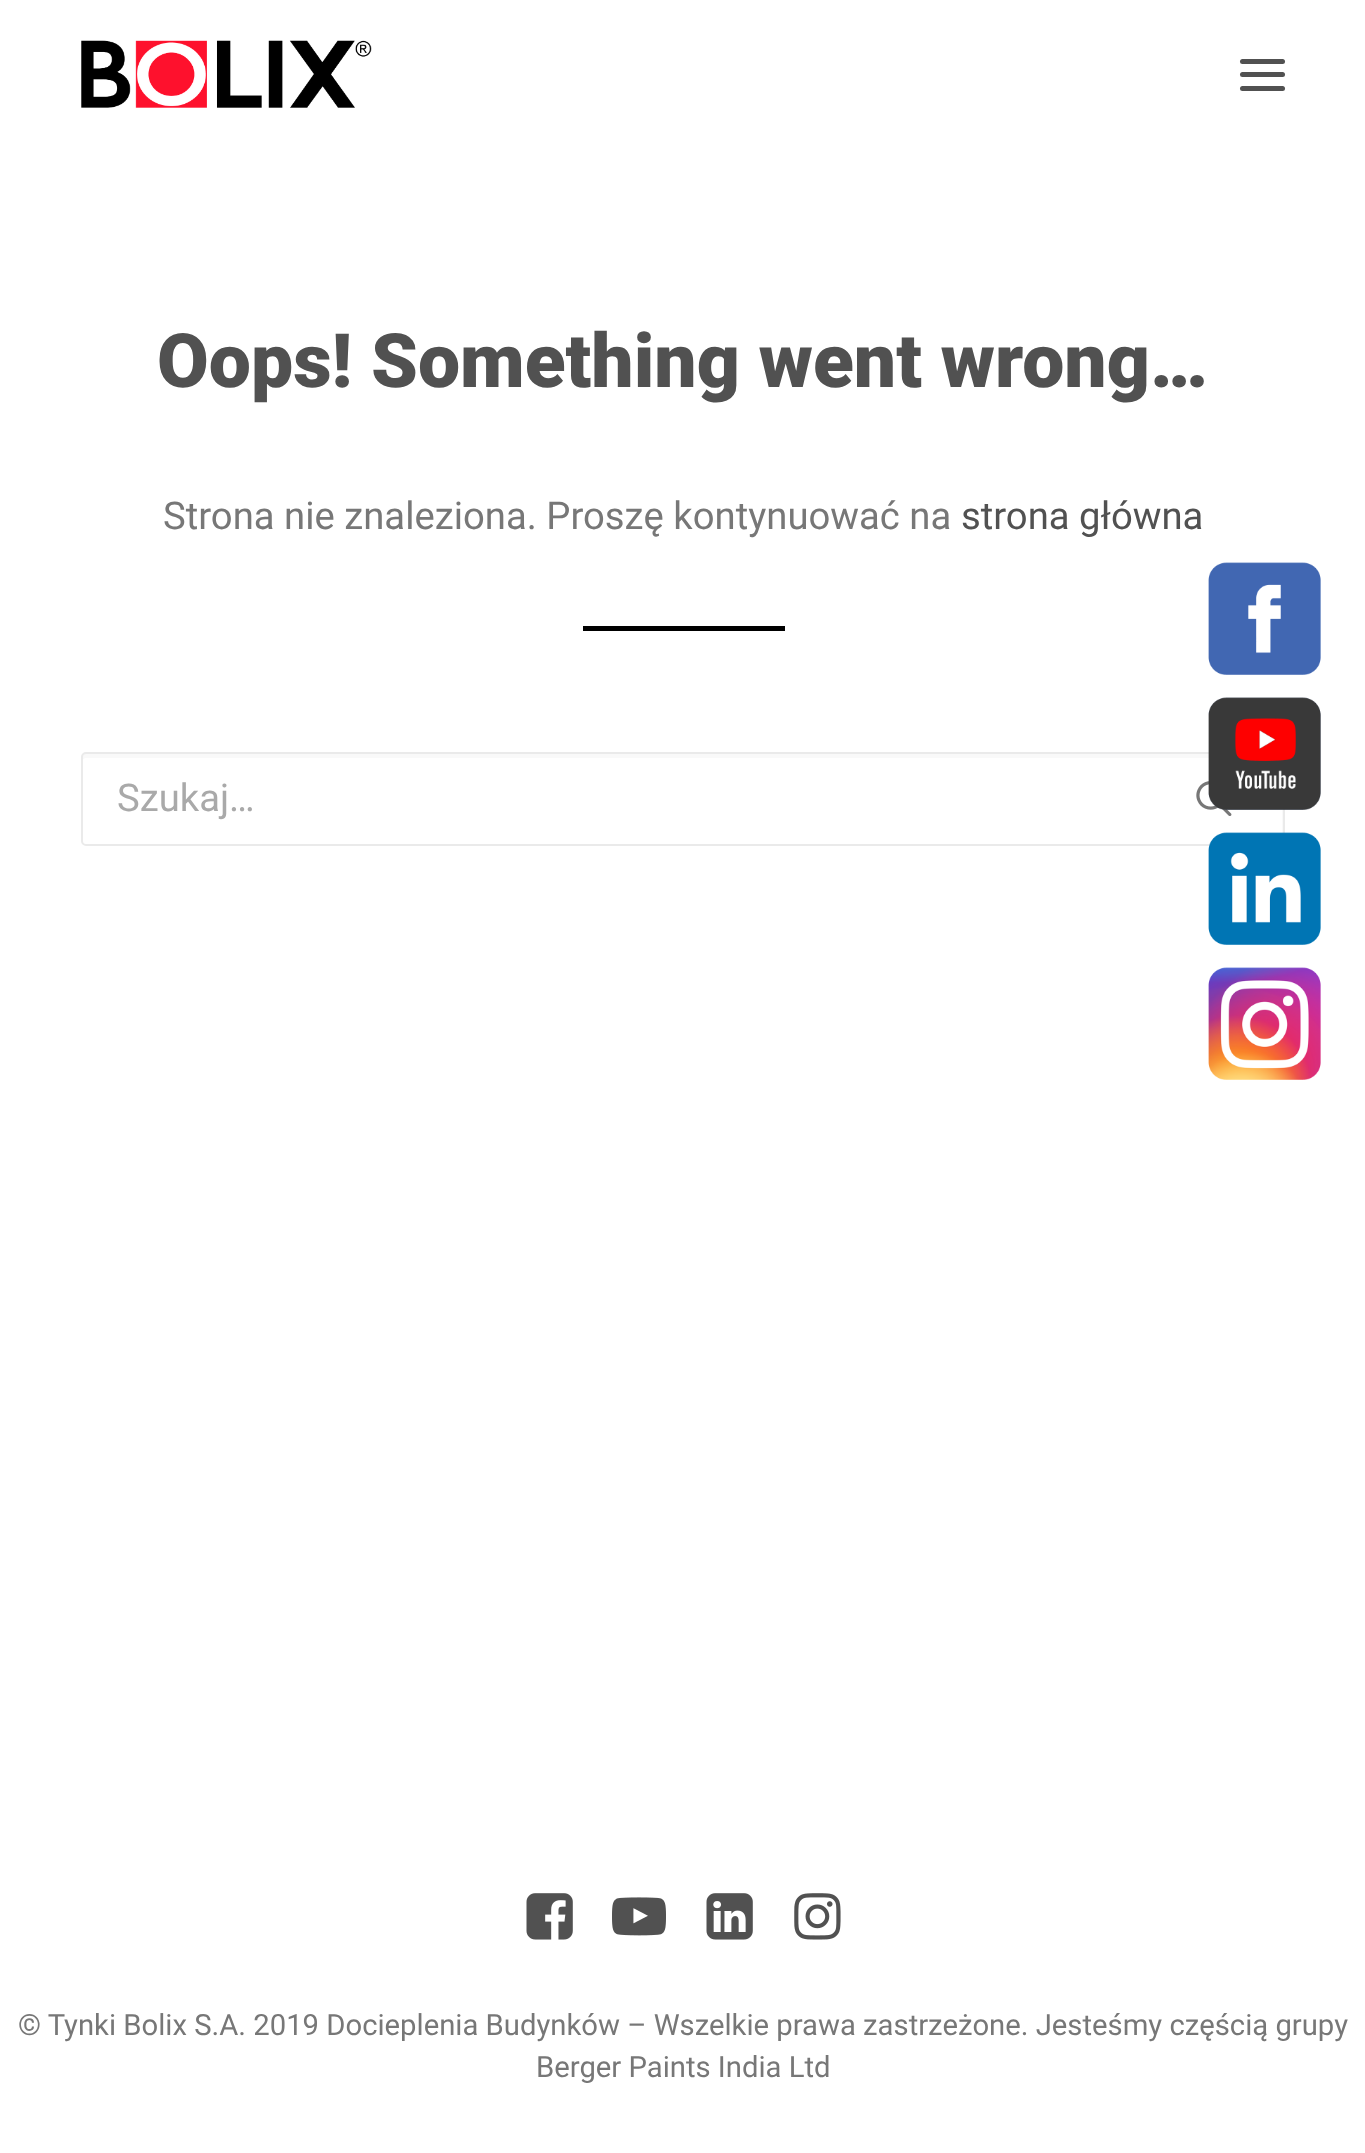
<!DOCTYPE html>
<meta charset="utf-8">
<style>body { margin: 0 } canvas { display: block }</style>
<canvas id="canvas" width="1365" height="2153"></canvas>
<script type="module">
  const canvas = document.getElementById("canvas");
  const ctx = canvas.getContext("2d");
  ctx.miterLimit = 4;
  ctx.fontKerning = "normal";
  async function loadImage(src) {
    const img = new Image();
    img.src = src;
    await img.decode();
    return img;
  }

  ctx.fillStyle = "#ffffff";
  ctx.fillRect(0, 0, 1365, 2153);
  ctx.drawImage(await loadImage("img1.png"), 81, 40, 291, 68);
  ctx.fillStyle = "#515151";
  ctx.beginPath();
  ctx.roundRect(1240, 72, 45, 5, 2.5);
  ctx.fill();
  ctx.beginPath();
  ctx.roundRect(1240, 59, 45, 5, 2.5);
  ctx.fill();
  ctx.beginPath();
  ctx.roundRect(1240, 86, 45, 5, 2.5);
  ctx.fill();
  ctx.font = "900 75px Roboto";
  ctx.fillText("Oops! Something went wrong…", 157, 387);
  ctx.font = "38.25px Roboto";
  ctx.fillStyle = "#777777";
  ctx.fillText("Strona nie znaleziona. Proszę kontynuować na", 163, 529);
  ctx.fillStyle = "#515151";
  ctx.fillText("strona główna", 961, 529);
  ctx.fillStyle = "#000000";
  ctx.fillRect(583, 626, 202, 5);
  ctx.fillStyle = "#f9f9f9";
  ctx.beginPath();
  ctx.moveTo(86, 758);
  ctx.lineTo(1280, 758);
  ctx.bezierCurveTo(1281, 758, 1282, 759, 1282, 760);
  ctx.lineTo(1282, 844);
  ctx.lineTo(1283, 842);
  ctx.lineTo(1283, 756);
  ctx.bezierCurveTo(1283, 755, 1282, 754, 1281, 754);
  ctx.lineTo(84, 754);
  ctx.bezierCurveTo(82, 755, 83, 758, 83, 760);
  ctx.bezierCurveTo(83, 759, 84, 758, 86, 758);
  ctx.closePath();
  ctx.fill();
  ctx.beginPath();
  ctx.roundRect(82, 753, 1202, 92, 4);
  ctx.strokeStyle = "#eaeaea";
  ctx.lineWidth = 2;
  ctx.stroke();
  ctx.fillStyle = "#a9a9a9";
  ctx.fillText("Szukaj…", 117, 811);
  ctx.drawImage(await loadImage("img2.png"), 1196, 781, 36, 35);
  ctx.drawImage(await loadImage("img3.png"), 526, 1893, 47, 47);
  ctx.drawImage(await loadImage("img4.png"), 612, 1897, 54, 39);
  ctx.drawImage(await loadImage("img5.png"), 706, 1893, 47, 47);
  ctx.drawImage(await loadImage("img6.png"), 794, 1893, 47, 47);
  ctx.font = "29.25px Roboto";
  ctx.fillStyle = "#777777";
  ctx.fillText("© Tynki Bolix S.A. 2019 Docieplenia Budynków – Wszelkie prawa zastrzeżone. Jesteśmy częścią grupy", 18, 2035);
  ctx.fillText("Berger Paints India Ltd", 536, 2077);
  ctx.drawImage(await loadImage("img7.png"), 1208, 562, 113, 113);
  ctx.drawImage(await loadImage("img8.png"), 1208, 697, 113, 113);
  ctx.drawImage(await loadImage("img9.png"), 1208, 832, 113, 113);
  ctx.drawImage(await loadImage("img10.png"), 1208, 967, 113, 113);
</script>
